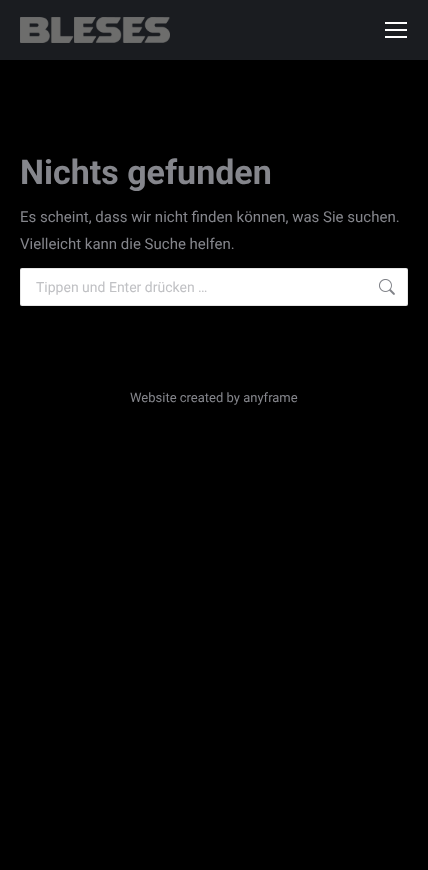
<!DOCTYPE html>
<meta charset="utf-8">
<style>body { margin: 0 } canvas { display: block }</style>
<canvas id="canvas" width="428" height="870"></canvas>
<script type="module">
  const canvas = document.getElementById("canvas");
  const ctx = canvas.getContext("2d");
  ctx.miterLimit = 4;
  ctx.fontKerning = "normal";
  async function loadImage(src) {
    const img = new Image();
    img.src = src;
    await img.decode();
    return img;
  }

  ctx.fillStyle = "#000000";
  ctx.fillRect(0, 0, 428, 870);
  ctx.fillStyle = "#1a1c20";
  ctx.fillRect(0, 0, 428, 60);
  ctx.drawImage(await loadImage("img1.png"), 20, 17, 150, 26);
  ctx.fillStyle = "#ffffff";
  ctx.fillRect(385, 22, 22, 2);
  ctx.fillRect(385, 29, 22, 2);
  ctx.fillRect(385, 36, 22, 2);
  ctx.font = "bold 34px Roboto";
  ctx.fillStyle = "#85868c";
  ctx.fillText("Nichts gefunden", 20, 184);
  ctx.font = "15px Roboto";
  ctx.fillText("Es scheint, dass wir nicht finden können, was Sie suchen.", 20, 222);
  ctx.fillText("Vielleicht kann die Suche helfen.", 20, 249);
  ctx.fillStyle = "#ffffff";
  ctx.beginPath();
  ctx.roundRect(20, 268, 388, 38, 2);
  ctx.fill();
  ctx.beginPath();
  ctx.roundRect(20.5, 268.5, 387, 37, 1.5);
  ctx.strokeStyle = "rgba(51, 51, 51, 0.12)";
  ctx.stroke();
  ctx.font = "14px Roboto";
  ctx.fillStyle = "#c0c1c4";
  ctx.fillText("Tippen und Enter drücken …", 36, 292);
  ctx.drawImage(await loadImage("img2.png"), 379, 279, 16, 16);
  ctx.font = "13px Roboto";
  ctx.fillStyle = "#85868c";
  ctx.fillText("Website created by anyframe", 130, 402);
</script>
